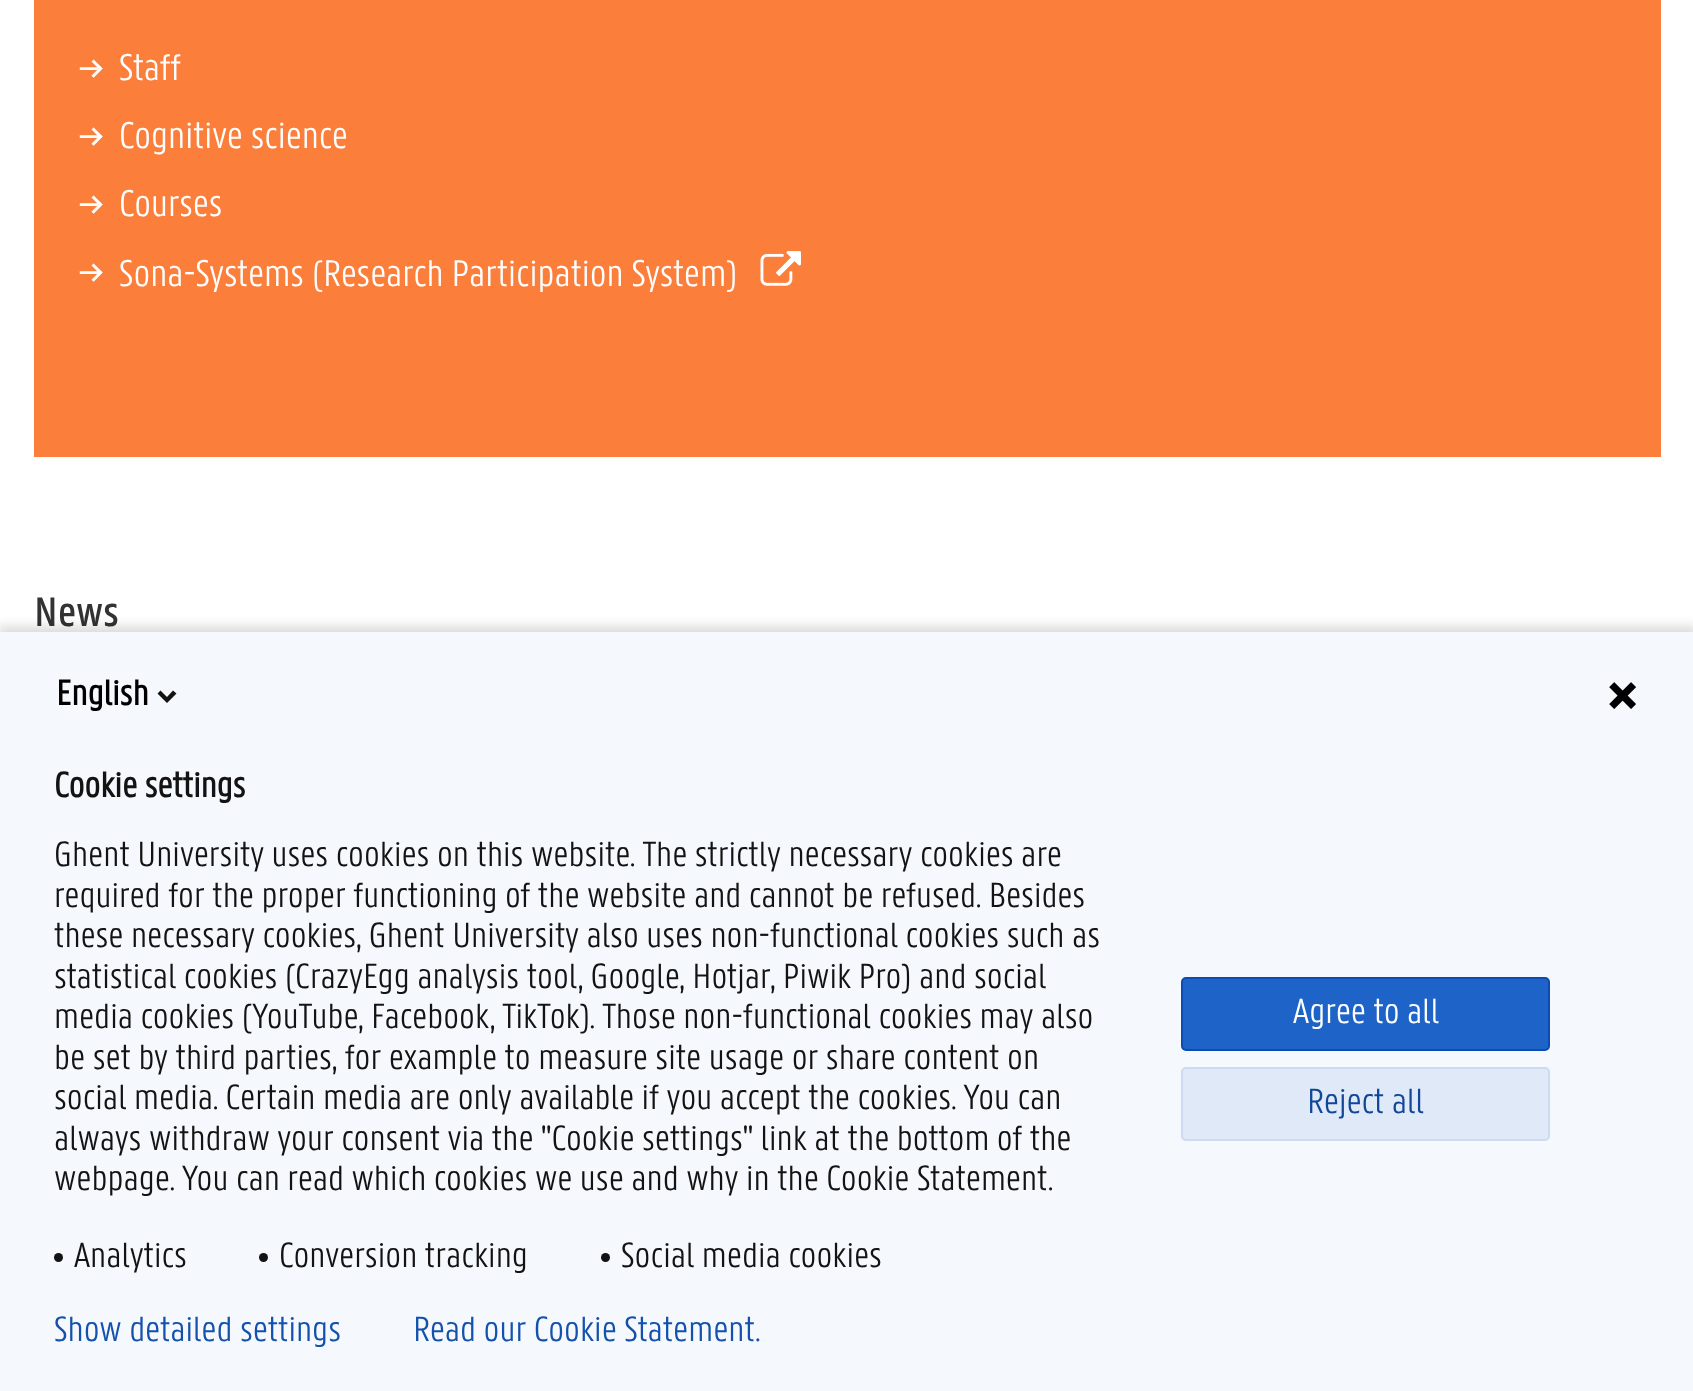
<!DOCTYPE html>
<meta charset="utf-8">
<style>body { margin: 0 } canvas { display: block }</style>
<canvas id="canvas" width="1693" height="1391"></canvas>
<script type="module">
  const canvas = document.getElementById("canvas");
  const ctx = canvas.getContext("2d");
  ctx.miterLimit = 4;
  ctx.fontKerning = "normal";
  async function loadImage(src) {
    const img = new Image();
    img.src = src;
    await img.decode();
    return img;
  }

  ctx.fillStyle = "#ffffff";
  ctx.fillRect(0, 0, 1693, 1391);
  ctx.fillStyle = "#fb7e3a";
  ctx.fillRect(34, 0, 1627, 457);
  ctx.font = "500 36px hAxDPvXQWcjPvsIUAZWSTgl";
  ctx.fillStyle = "#ffffff";
  ctx.fillText("→", 79, 80);
  ctx.font = "300 40.5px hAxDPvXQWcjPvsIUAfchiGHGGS";
  ctx.fillText("Staff", 119, 80);
  ctx.font = "500 36px hAxDPvXQWcjPvsIUAZWSTgl";
  ctx.fillText("→", 79, 148);
  ctx.font = "300 40.5px hAxDPvXQWcjPvsIUAfchiGHGGS";
  ctx.fillText("Cognitive science", 119, 148);
  ctx.font = "500 36px hAxDPvXQWcjPvsIUAZWSTgl";
  ctx.fillText("→", 79, 216);
  ctx.font = "300 40.5px hAxDPvXQWcjPvsIUAfchiGHGGS";
  ctx.fillText("Courses", 119, 216);
  ctx.font = "500 36px hAxDPvXQWcjPvsIUAZWSTgl";
  ctx.fillText("→", 79, 284);
  ctx.font = "300 40.5px hAxDPvXQWcjPvsIUAfchiGHGGS";
  ctx.fillText("Sona-Systems (Research Participation System)", 119, 286);
  ctx.drawImage(await loadImage("img1.png"), 760, 251, 41, 35);
  ctx.font = "500 45px hAxDPvXQWcjPvsIUAZWSTgl";
  ctx.fillStyle = "#333333";
  ctx.fillText("News", 34, 626);
  ctx.fillStyle = "rgba(0, 0, 0, 0.14)";
  ctx.filter = "blur(5.5px)";
  ctx.beginPath();
  ctx.rect(-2, 626, 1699, 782);
  ctx.fill();
  ctx.filter = "none";
  ctx.fillStyle = "#f5f8fc";
  ctx.fillRect(0, 632, 1693, 759);
  ctx.font = "bold 38.25px hAxDPvXQWcjPvsIUAfchiGHGGS";
  ctx.fillStyle = "#000000";
  ctx.fillText("English", 56, 705);
  ctx.fillStyle = "#131313";
  ctx.beginPath();
  ctx.moveTo(167, 697);
  ctx.lineTo(173, 690.5);
  ctx.lineTo(176.5, 693.5);
  ctx.lineTo(167, 703);
  ctx.lineTo(157.5, 693.5);
  ctx.lineTo(160.5, 690.5);
  ctx.closePath();
  ctx.fill();
  ctx.drawImage(await loadImage("img2.png"), 1609, 682, 27, 27);
  ctx.fillText("Cookie settings", 54, 797);
  ctx.font = "300 38.25px hAxDPvXQWcjPvsIUAfchiGHGGS";
  ctx.fillText("Ghent University uses cookies on this website. The strictly necessary cookies are", 54, 866);
  ctx.fillText("required for the proper functioning of the website and cannot be refused. Besides", 54, 907);
  ctx.fillText("these necessary cookies, Ghent University also uses non-functional cookies such as", 54, 947);
  ctx.fillText("statistical cookies (CrazyEgg analysis tool, Google, Hotjar, Piwik Pro) and social", 54, 988);
  ctx.fillText("media cookies (YouTube, Facebook, TikTok). Those non-functional cookies may also", 54, 1028);
  ctx.fillText("be set by third parties, for example to measure site usage or share content on", 54, 1069);
  ctx.fillText("social media. Certain media are only available if you accept the cookies. You can", 54, 1109);
  ctx.fillText("always withdraw your consent via the \"Cookie settings\" link at the bottom of the", 54, 1150);
  ctx.fillText("webpage. You can read which cookies we use and why in the Cookie Statement.", 54, 1190);
  ctx.beginPath();
  ctx.arc(58.5, 1257.5, 4.5, 0, Math.PI * 2);
  ctx.fill();
  ctx.fillText("Analytics", 74, 1267);
  ctx.beginPath();
  ctx.arc(263.5, 1257.5, 4.5, 0, Math.PI * 2);
  ctx.fill();
  ctx.fillText("Conversion tracking", 279, 1267);
  ctx.beginPath();
  ctx.arc(605.5, 1257.5, 4.5, 0, Math.PI * 2);
  ctx.fill();
  ctx.fillText("Social media cookies", 621, 1267);
  ctx.fillStyle = "#1e64c8";
  ctx.beginPath();
  ctx.roundRect(1182, 978, 367, 72, 4);
  ctx.fill();
  ctx.strokeStyle = "#0b4bb3";
  ctx.lineWidth = 2;
  ctx.stroke();
  ctx.fillStyle = "#ffffff";
  ctx.fillText("Agree to all", 1293, 1023);
  ctx.fillStyle = "#e0e9f7";
  ctx.beginPath();
  ctx.roundRect(1181, 1067, 369, 74, 5);
  ctx.fill();
  ctx.beginPath();
  ctx.roundRect(1182, 1068, 367, 72, 4);
  ctx.strokeStyle = "rgba(30, 100, 200, 0.1)";
  ctx.stroke();
  ctx.fillStyle = "#114799";
  ctx.fillText("Reject all", 1307, 1113);
  ctx.fillStyle = "#1351ac";
  ctx.fillText("Show detailed settings", 54, 1341);
  ctx.fillText("Read our Cookie Statement.", 413, 1341);
</script>
